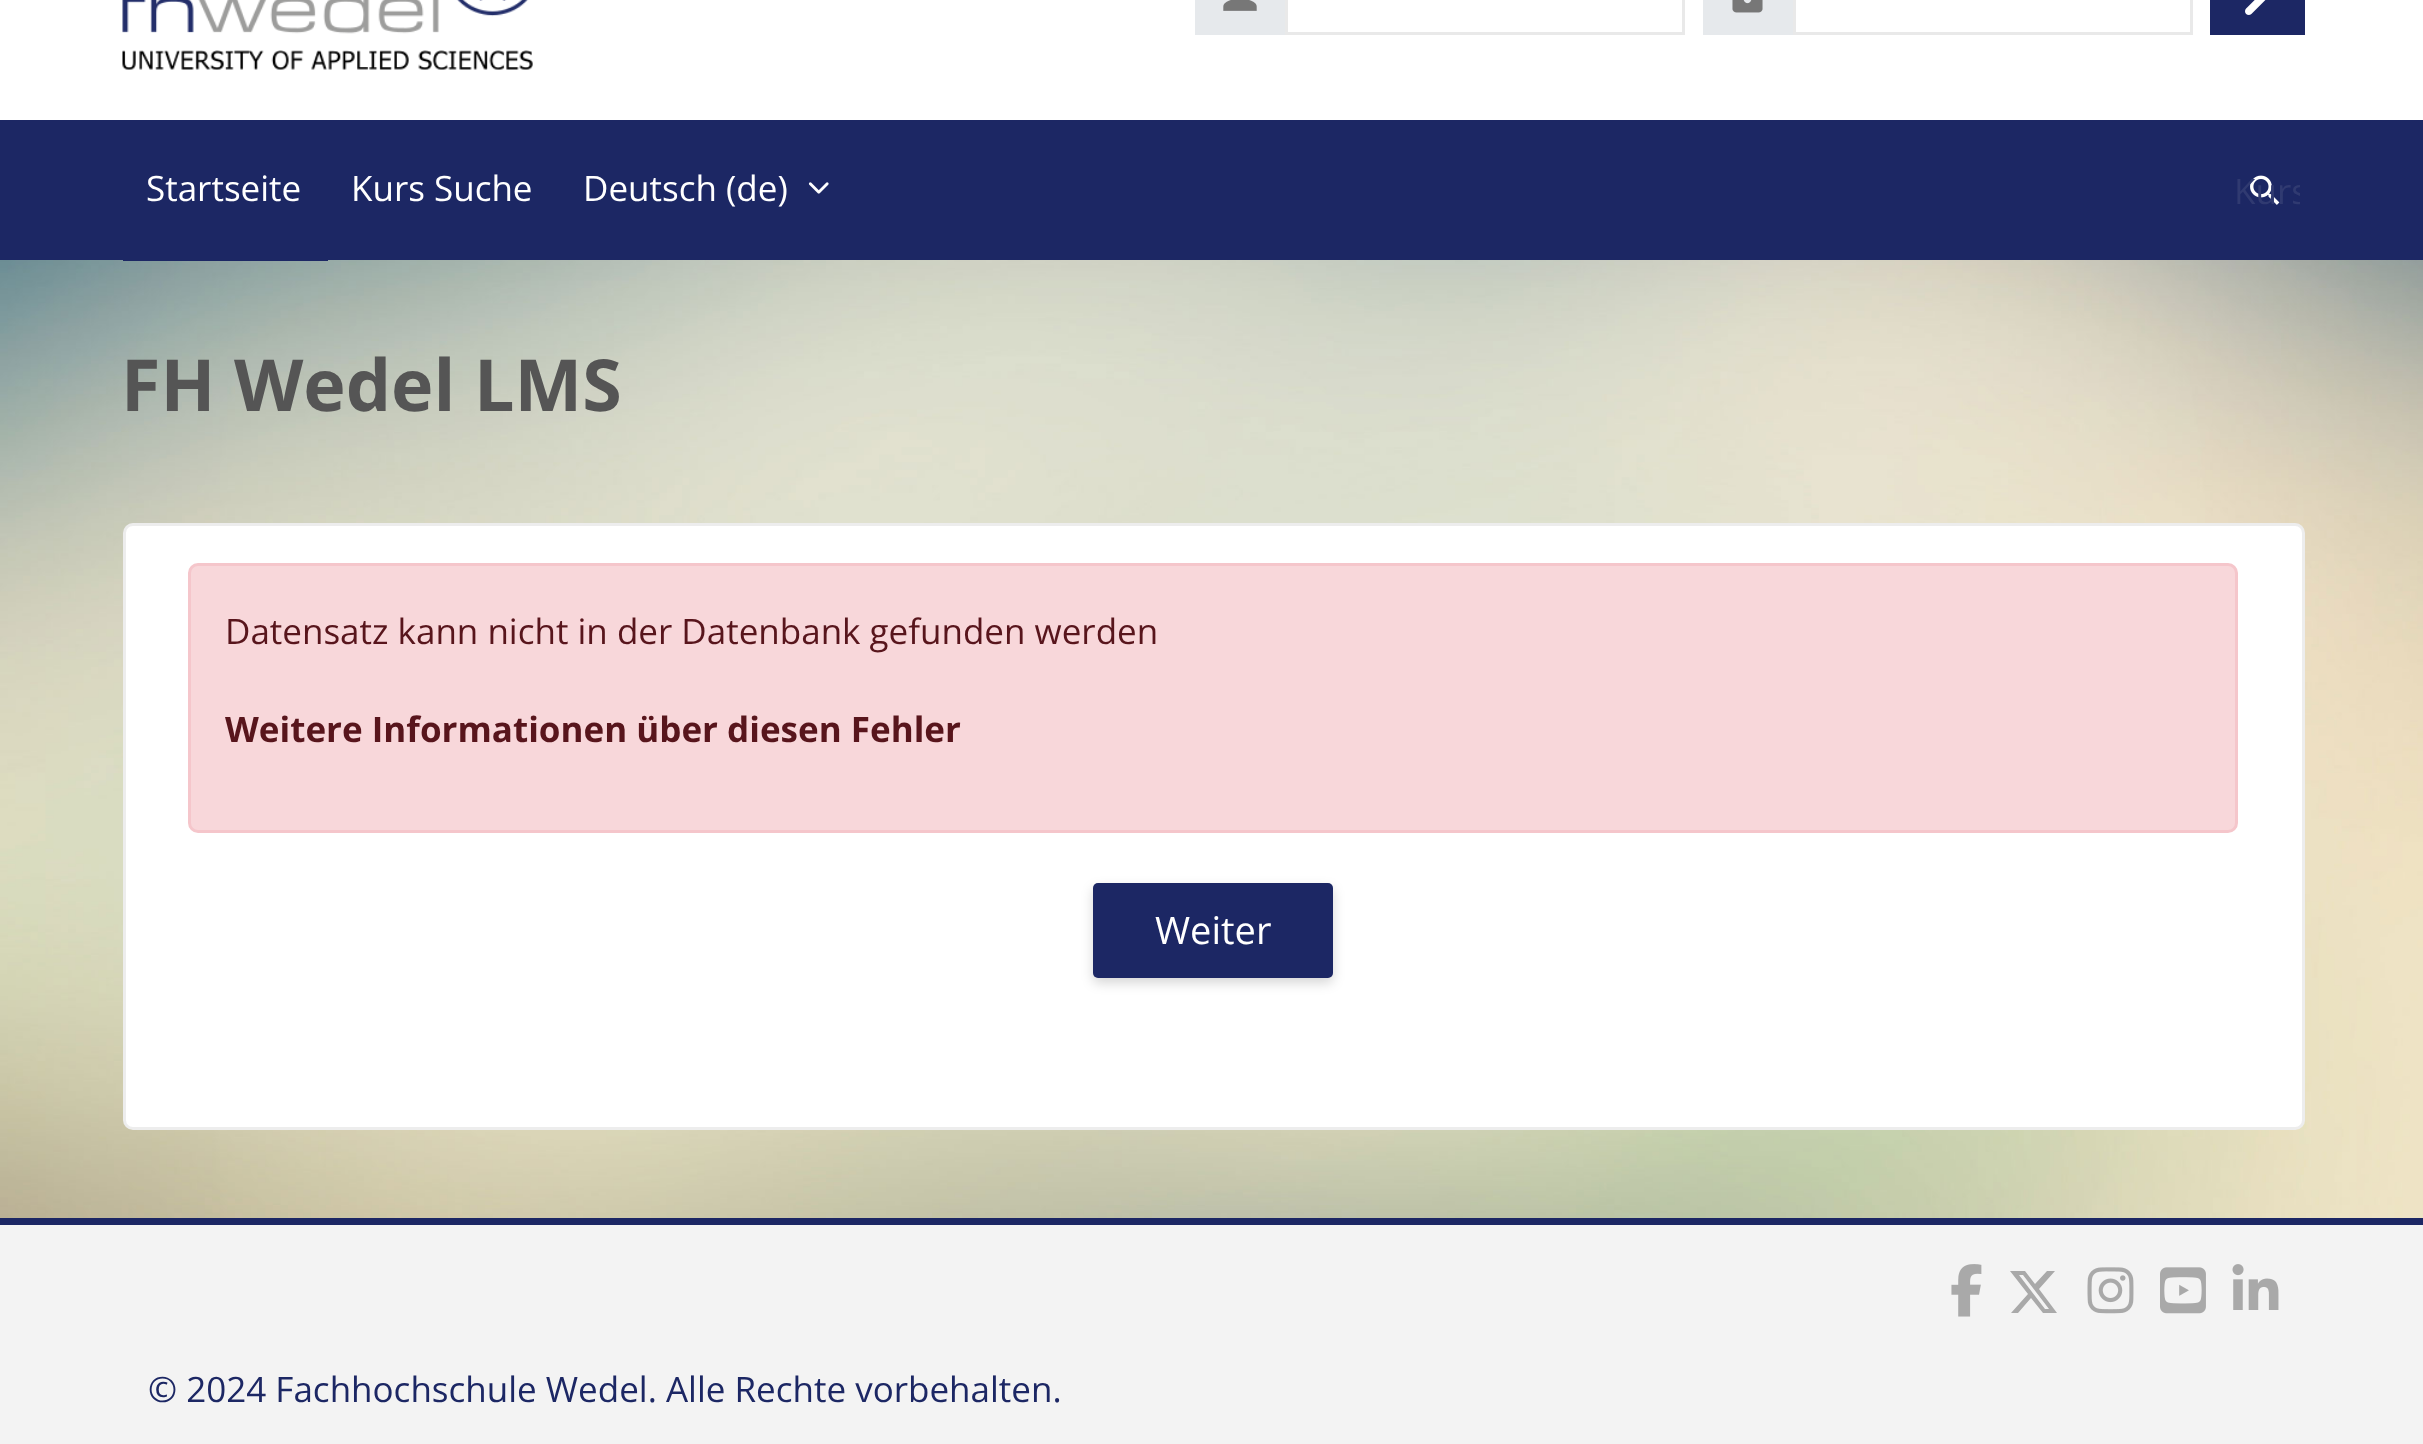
<!DOCTYPE html>
<meta charset="utf-8">
<style>body { margin: 0 } canvas { display: block }</style>
<canvas id="canvas" width="2423" height="1444"></canvas>
<script type="module">
  const canvas = document.getElementById("canvas");
  const ctx = canvas.getContext("2d");
  ctx.miterLimit = 4;
  ctx.fontKerning = "normal";
  async function loadImage(src) {
    const img = new Image();
    img.src = src;
    await img.decode();
    return img;
  }

  ctx.fillStyle = "#ffffff";
  ctx.fillRect(0, 0, 2423, 1444);
  ctx.drawImage(await loadImage("img1.png"), 0, 260, 2423, 958);
  ctx.drawImage(await loadImage("img2.png"), 122, 0, 411, 70);
  ctx.fillStyle = "#e6e9ec";
  ctx.fillRect(1195, 0, 90, 35);
  ctx.drawImage(await loadImage("img3.png"), 1223, 0, 34, 11);
  ctx.strokeStyle = "#e9e9e9";
  ctx.lineWidth = 3;
  ctx.strokeRect(1286.5, -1.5, 397, 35);
  ctx.fillRect(1703, 0, 90, 35);
  ctx.drawImage(await loadImage("img4.png"), 1732, 0, 31, 13);
  ctx.strokeRect(1794.5, -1.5, 397, 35);
  ctx.fillStyle = "#1c2764";
  ctx.fillRect(2210, 0, 95, 35);
  ctx.drawImage(await loadImage("img5.png"), 2245, 0, 21, 15);
  ctx.fillRect(0, 120, 2423, 140);
  ctx.fillRect(123, 260, 205, 1);
  ctx.font = "35px Open Sans";
  ctx.fillStyle = "#ffffff";
  ctx.fillText("Startseite", 146, 201);
  ctx.fillText("Kurs Suche", 351, 201);
  ctx.fillText("Deutsch (de)", 583, 201);
  ctx.drawImage(await loadImage("img6.png"), 808, 182, 21, 12);
  ctx.drawImage(await loadImage("img7.png"), 2250, 175, 30, 30);
  ctx.save();
  ctx.beginPath();
  ctx.rect(2235, 165, 65, 48);
  ctx.clip();
  ctx.fillStyle = "#303a71";
  ctx.fillText("Kurs", 2234, 204);
  ctx.restore();
  ctx.font = "bold 71.75px Open Sans";
  ctx.fillStyle = "#555555";
  ctx.fillText("FH Wedel LMS", 121, 411);
  ctx.fillStyle = "#ffffff";
  ctx.beginPath();
  ctx.roundRect(123, 523, 2182, 607, 10);
  ctx.fill();
  ctx.beginPath();
  ctx.roundRect(124.5, 524.5, 2179, 604, 8.5);
  ctx.strokeStyle = "rgba(0, 0, 0, 0.07)";
  ctx.stroke();
  ctx.fillStyle = "#f8d7da";
  ctx.beginPath();
  ctx.roundRect(189.5, 564.5, 2047, 267, 8.5);
  ctx.fill();
  ctx.strokeStyle = "#f5c6cb";
  ctx.stroke();
  ctx.font = "35px Open Sans";
  ctx.fillStyle = "#58151c";
  ctx.fillText("Datensatz kann nicht in der Datenbank gefunden werden", 225, 644);
  ctx.font = "bold 35px Open Sans";
  ctx.fillText("Weitere Informationen über diesen Fehler", 225, 742);
  ctx.fillStyle = "rgba(0, 0, 0, 0.16)";
  ctx.filter = "blur(6px)";
  ctx.beginPath();
  ctx.roundRect(1093, 888, 240, 95, 5);
  ctx.fill();
  ctx.filter = "none";
  ctx.fillStyle = "#1c2764";
  ctx.beginPath();
  ctx.roundRect(1093, 883, 240, 95, 5);
  ctx.fill();
  ctx.font = "38px Open Sans";
  ctx.fillStyle = "#ffffff";
  ctx.fillText("Weiter", 1155, 944);
  ctx.fillStyle = "#1c2764";
  ctx.fillRect(0, 1218, 2423, 7);
  ctx.fillStyle = "#f3f3f3";
  ctx.fillRect(0, 1225, 2423, 219);
  ctx.drawImage(await loadImage("img8.png"), 1951, 1264, 31, 53);
  ctx.fillStyle = "#a9a9a9";
  ctx.beginPath();
  ctx.moveTo(2047, 1271);
  ctx.lineTo(2055, 1271);
  ctx.lineTo(2039, 1289);
  ctx.lineTo(2057, 1313);
  ctx.lineTo(2043, 1313);
  ctx.lineTo(2031, 1298);
  ctx.lineTo(2018, 1313);
  ctx.lineTo(2011, 1313);
  ctx.lineTo(2028, 1294);
  ctx.lineTo(2010, 1271);
  ctx.lineTo(2025, 1271);
  ctx.lineTo(2035, 1284);
  ctx.closePath();
  ctx.moveTo(2045, 1309);
  ctx.lineTo(2049, 1309);
  ctx.lineTo(2023, 1275);
  ctx.lineTo(2019, 1275);
  ctx.closePath();
  ctx.fill();
  ctx.drawImage(await loadImage("img9.png"), 2087, 1267, 47, 47);
  ctx.drawImage(await loadImage("img10.png"), 2160, 1267, 46, 47);
  ctx.drawImage(await loadImage("img11.png"), 2232, 1264, 47, 46);
  ctx.font = "35px Open Sans";
  ctx.fillStyle = "#1c2764";
  ctx.fillText("© 2024 Fachhochschule Wedel. Alle Rechte vorbehalten.", 148, 1402);
</script>
